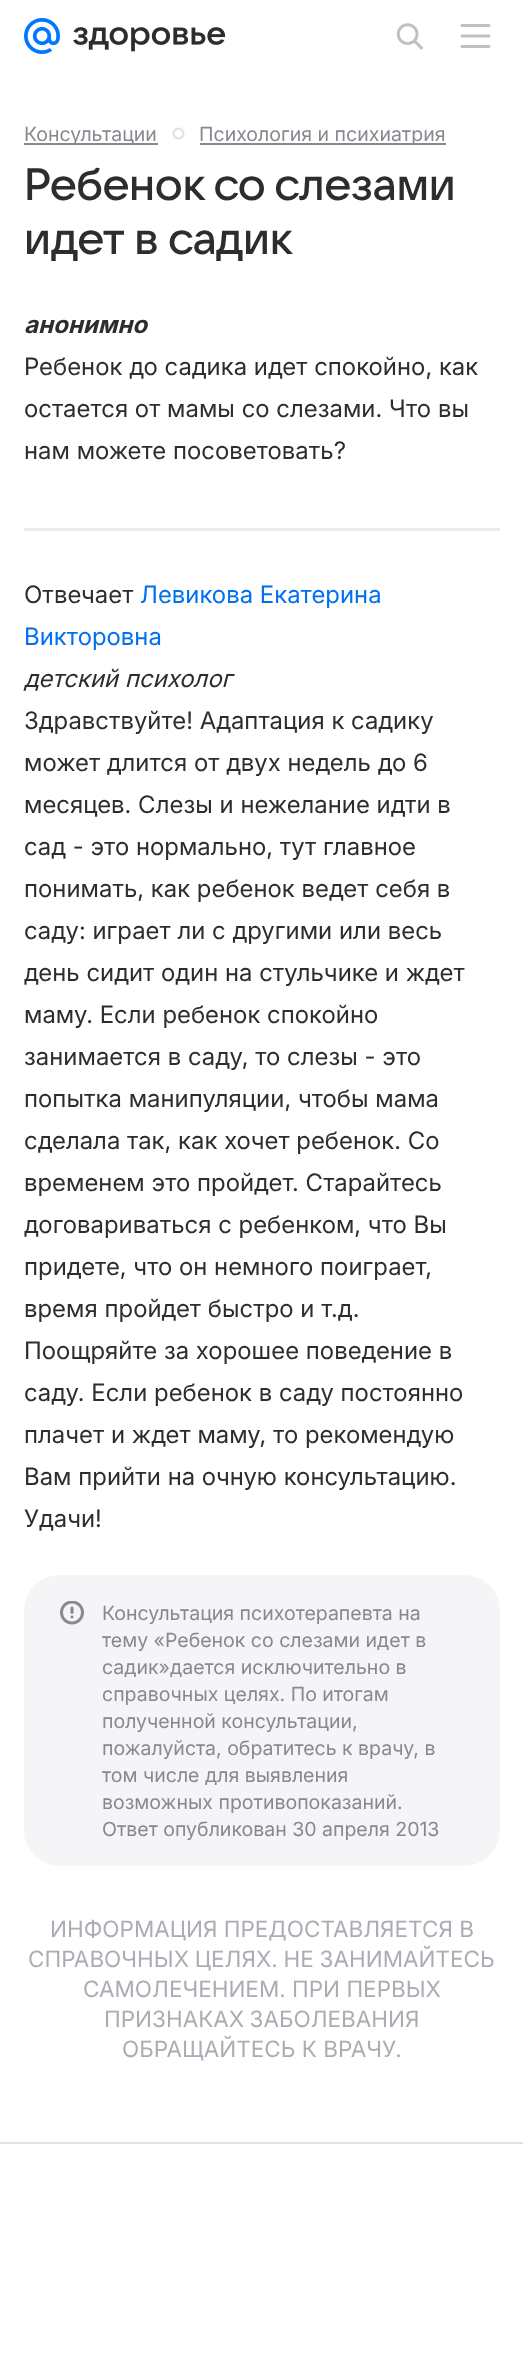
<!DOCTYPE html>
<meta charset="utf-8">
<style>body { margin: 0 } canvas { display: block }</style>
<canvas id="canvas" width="523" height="2369"></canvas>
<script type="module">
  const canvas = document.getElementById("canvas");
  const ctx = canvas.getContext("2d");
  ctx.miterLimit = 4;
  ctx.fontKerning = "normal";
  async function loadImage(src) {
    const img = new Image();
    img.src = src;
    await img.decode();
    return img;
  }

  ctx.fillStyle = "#ffffff";
  ctx.fillRect(0, 0, 523, 2369);
  ctx.drawImage(await loadImage("img1.png"), 24, 18, 36, 36);
  ctx.drawImage(await loadImage("img2.png"), 73, 27, 153, 25);
  ctx.drawImage(await loadImage("img3.png"), 396, 23, 27, 27);
  ctx.drawImage(await loadImage("img4.png"), 460, 24, 31, 24);
  ctx.fillStyle = "#87898f";
  ctx.fillRect(24, 143, 134, 2);
  ctx.font = "19.5px 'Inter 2'";
  ctx.fillText("Консультации", 24, 141);
  ctx.drawImage(await loadImage("img5.png"), 172, 127, 13, 13);
  ctx.fillRect(200, 143, 246, 2);
  ctx.fillText("Психология и психиатрия", 199, 141);
  ctx.letterSpacing = "-0.25px";
  ctx.font = "500 45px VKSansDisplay";
  ctx.fillStyle = "#2c2d2e";
  ctx.fillText("Ребенок со слезами", 24, 200);
  ctx.fillText("идет в садик", 24, 254);
  ctx.letterSpacing = "0.05px";
  ctx.font = "italic bold 24px Inter";
  ctx.fillText("анонимно", 24, 333);
  ctx.font = "24px Inter";
  ctx.fillText("Ребенок до садика идет спокойно, как", 24, 375);
  ctx.fillText("остается от мамы со слезами. Что вы", 24, 417);
  ctx.fillText("нам можете посоветовать?", 24, 459);
  ctx.fillStyle = "#ebecef";
  ctx.fillRect(24, 528, 476, 3);
  ctx.fillStyle = "#2c2d2e";
  ctx.fillText("Отвечает", 24, 603);
  ctx.fillStyle = "#0070f0";
  ctx.fillText("Левикова Екатерина", 140, 603);
  ctx.fillText("Викторовна", 24, 645);
  ctx.font = "italic 24px Inter";
  ctx.fillStyle = "#2c2d2e";
  ctx.fillText("детский психолог", 24, 687);
  ctx.font = "24px Inter";
  ctx.fillText("Здравствуйте! Адаптация к садику", 24, 729);
  ctx.fillText("может длится от двух недель до 6", 24, 771);
  ctx.fillText("месяцев. Слезы и нежелание идти в", 24, 813);
  ctx.fillText("сад - это нормально, тут главное", 24, 855);
  ctx.fillText("понимать, как ребенок ведет себя в", 24, 897);
  ctx.fillText("саду: играет ли с другими или весь", 24, 939);
  ctx.fillText("день сидит один на стульчике и ждет", 24, 981);
  ctx.fillText("маму. Если ребенок спокойно", 24, 1023);
  ctx.fillText("занимается в саду, то слезы - это", 24, 1065);
  ctx.fillText("попытка манипуляции, чтобы мама", 24, 1107);
  ctx.fillText("сделала так, как хочет ребенок. Со", 24, 1149);
  ctx.fillText("временем это пройдет. Старайтесь", 24, 1191);
  ctx.fillText("договариваться с ребенком, что Вы", 24, 1233);
  ctx.fillText("придете, что он немного поиграет,", 24, 1275);
  ctx.fillText("время пройдет быстро и т.д.", 24, 1317);
  ctx.fillText("Поощряйте за хорошее поведение в", 24, 1359);
  ctx.fillText("саду. Если ребенок в саду постоянно", 24, 1401);
  ctx.fillText("плачет и ждет маму, то рекомендую", 24, 1443);
  ctx.fillText("Вам прийти на очную консультацию.", 24, 1485);
  ctx.fillText("Удачи!", 24, 1527);
  ctx.fillStyle = "#f5f5f7";
  ctx.beginPath();
  ctx.roundRect(24, 1575, 476, 291, 36);
  ctx.fill();
  ctx.drawImage(await loadImage("img6.png"), 60, 1601, 24, 24);
  ctx.letterSpacing = "0px";
  ctx.font = "19.5px 'Inter 2'";
  ctx.fillStyle = "#87898f";
  ctx.fillText("Консультация психотерапевта на", 102, 1620);
  ctx.fillText("тему «Ребенок со слезами идет в", 102, 1647);
  ctx.fillText("садик»дается исключительно в", 102, 1674);
  ctx.fillText("справочных целях. По итогам", 102, 1701);
  ctx.fillText("полученной консультации,", 102, 1728);
  ctx.fillText("пожалуйста, обратитесь к врачу, в", 102, 1755);
  ctx.fillText("том числе для выявления", 102, 1782);
  ctx.fillText("возможных противопоказаний.", 102, 1809);
  ctx.fillText("Ответ опубликован 30 апреля 2013", 102, 1836);
  ctx.font = "22.5px 'Inter 2'";
  ctx.fillStyle = "#aaadb3";
  ctx.fillText("ИНФОРМАЦИЯ ПРЕДОСТАВЛЯЕТСЯ В", 50, 1937);
  ctx.wordSpacing = "-0.5px";
  ctx.fillText("СПРАВОЧНЫХ ЦЕЛЯХ. НЕ ЗАНИМАЙТЕСЬ", 28, 1967);
  ctx.wordSpacing = "0px";
  ctx.fillText("САМОЛЕЧЕНИЕМ. ПРИ ПЕРВЫХ", 83, 1997);
  ctx.wordSpacing = "-1px";
  ctx.fillText("ПРИЗНАКАХ ЗАБОЛЕВАНИЯ", 104, 2027);
  ctx.wordSpacing = "0px";
  ctx.fillText("ОБРАЩАЙТЕСЬ К ВРАЧУ.", 122, 2057);
  ctx.fillStyle = "#e0e2e8";
  ctx.fillRect(0, 2142, 523, 2);
</script>
